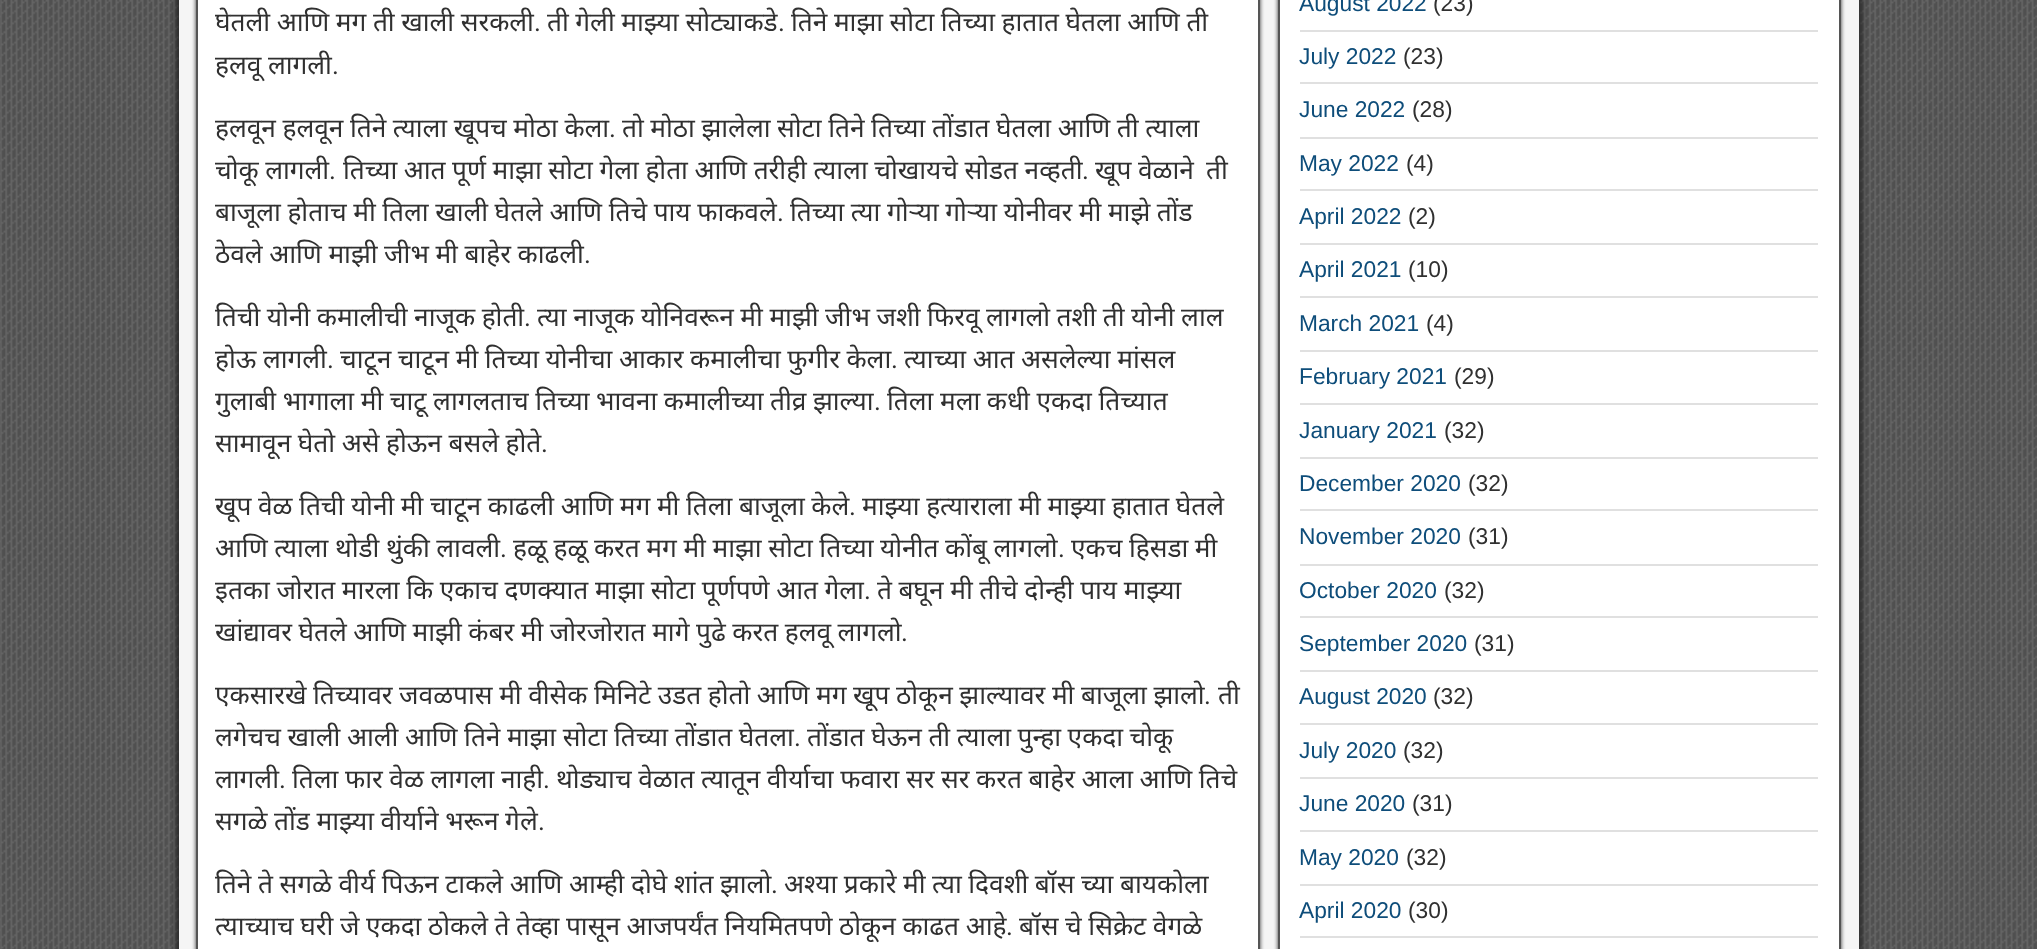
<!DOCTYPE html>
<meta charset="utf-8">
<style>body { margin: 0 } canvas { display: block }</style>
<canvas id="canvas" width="2037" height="949"></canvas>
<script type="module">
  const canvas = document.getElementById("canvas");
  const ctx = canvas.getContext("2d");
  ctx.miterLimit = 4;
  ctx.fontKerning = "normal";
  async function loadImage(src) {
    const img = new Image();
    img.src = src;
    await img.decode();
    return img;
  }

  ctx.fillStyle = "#505050";
  ctx.fillRect(0, 0, 2037, 949);
  ctx.drawImage(await loadImage("img1.png"), 0, 0, 2037, 949);
  ctx.fillStyle = "#000000";
  ctx.filter = "blur(5px)";
  ctx.beginPath();
  ctx.rect(179, -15, 1680, 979);
  ctx.fill();
  ctx.filter = "none";
  ctx.fillStyle = "#f5f5f5";
  ctx.fillRect(179, 0, 1680, 949);
  ctx.fillStyle = "#333333";
  ctx.filter = "blur(2px)";
  ctx.beginPath();
  ctx.rect(196, -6, 1064, 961);
  ctx.fill();
  ctx.filter = "none";
  ctx.fillStyle = "#ffffff";
  ctx.beginPath();
  ctx.rect(197, -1, 1062, 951);
  ctx.fill();
  ctx.strokeStyle = "#555555";
  ctx.lineWidth = 2;
  ctx.stroke();
  ctx.wordSpacing = "-0.25px";
  ctx.font = "26.25px Noto Sans";
  ctx.fillStyle = "#303030";
  ctx.fillText("घेतली आणि मग ती खाली सरकली", 215, 31);
  ctx.wordSpacing = "0px";
  ctx.font = "26.25px Roboto";
  ctx.fillText(".", 534, 31);
  ctx.wordSpacing = "-0.25px";
  ctx.font = "26.25px Noto Sans";
  ctx.fillText("ती गेली माझ्या सोट्याकडे", 547, 31);
  ctx.wordSpacing = "0px";
  ctx.font = "26.25px Roboto";
  ctx.fillText(".", 778, 31);
  ctx.wordSpacing = "-0.25px";
  ctx.font = "26.25px Noto Sans";
  ctx.fillText("तिने माझा सोटा तिच्या हातात घेतला आणि ती", 791, 31);
  ctx.fillText("हलवू लागली", 215, 74);
  ctx.wordSpacing = "0px";
  ctx.font = "26.25px Roboto";
  ctx.fillText(".", 332, 74);
  ctx.wordSpacing = "-0.25px";
  ctx.font = "26.25px Noto Sans";
  ctx.fillText("हलवून हलवून तिने त्याला खूपच मोठा केला", 215, 137);
  ctx.wordSpacing = "0px";
  ctx.font = "26.25px Roboto";
  ctx.fillText(".", 609, 137);
  ctx.wordSpacing = "-0.25px";
  ctx.font = "26.25px Noto Sans";
  ctx.fillText("तो मोठा झालेला सोटा तिने तिच्या तोंडात घेतला आणि ती त्याला", 622, 137);
  ctx.fillText("चोकू लागली", 215, 179);
  ctx.wordSpacing = "0px";
  ctx.font = "26.25px Roboto";
  ctx.fillText(".", 329, 179);
  ctx.wordSpacing = "-0.25px";
  ctx.font = "26.25px Noto Sans";
  ctx.fillText("तिच्या आत पूर्ण माझा सोटा गेला होता आणि तरीही त्याला चोखायचे सोडत नव्हती", 343, 179);
  ctx.wordSpacing = "0px";
  ctx.font = "26.25px Roboto";
  ctx.fillText(".", 1082, 179);
  ctx.wordSpacing = "-0.25px";
  ctx.font = "26.25px Noto Sans";
  ctx.fillText("खूप वेळाने", 1095, 179);
  ctx.wordSpacing = "0px";
  ctx.fillText("ती", 1206, 179);
  ctx.wordSpacing = "-0.25px";
  ctx.fillText("बाजूला होताच मी तिला खाली घेतले आणि तिचे पाय फाकवले", 215, 221);
  ctx.wordSpacing = "0px";
  ctx.font = "26.25px Roboto";
  ctx.fillText(".", 777, 221);
  ctx.wordSpacing = "-0.25px";
  ctx.font = "26.25px Noto Sans";
  ctx.fillText("तिच्या त्या गोऱ्या गोऱ्या योनीवर मी माझे तोंड", 790, 221);
  ctx.fillText("ठेवले आणि माझी जीभ मी बाहेर काढली", 215, 263);
  ctx.wordSpacing = "0px";
  ctx.font = "26.25px Roboto";
  ctx.fillText(".", 584, 263);
  ctx.wordSpacing = "-0.25px";
  ctx.font = "26.25px Noto Sans";
  ctx.fillText("तिची योनी कमालीची नाजूक होती", 215, 326);
  ctx.wordSpacing = "0px";
  ctx.font = "26.25px Roboto";
  ctx.fillText(".", 524, 326);
  ctx.wordSpacing = "-0.25px";
  ctx.font = "26.25px Noto Sans";
  ctx.fillText("त्या नाजूक योनिवरून मी माझी जीभ जशी फिरवू लागलो तशी ती योनी लाल", 537, 326);
  ctx.fillText("होऊ लागली", 215, 368);
  ctx.wordSpacing = "0px";
  ctx.font = "26.25px Roboto";
  ctx.fillText(".", 327, 368);
  ctx.wordSpacing = "-0.25px";
  ctx.font = "26.25px Noto Sans";
  ctx.fillText("चाटून चाटून मी तिच्या योनीचा आकार कमालीचा फुगीर केला", 340, 368);
  ctx.wordSpacing = "0px";
  ctx.font = "26.25px Roboto";
  ctx.fillText(".", 891, 368);
  ctx.wordSpacing = "-0.25px";
  ctx.font = "26.25px Noto Sans";
  ctx.fillText("त्याच्या आत असलेल्या मांसल", 904, 368);
  ctx.fillText("गुलाबी भागाला मी चाटू लागलताच तिच्या भावना कमालीच्या तीव्र झाल्या", 215, 410);
  ctx.wordSpacing = "0px";
  ctx.font = "26.25px Roboto";
  ctx.fillText(".", 874, 410);
  ctx.wordSpacing = "-0.25px";
  ctx.font = "26.25px Noto Sans";
  ctx.fillText("तिला मला कधी एकदा तिच्यात", 887, 410);
  ctx.fillText("सामावून घेतो असे होऊन बसले होते", 215, 452);
  ctx.wordSpacing = "0px";
  ctx.font = "26.25px Roboto";
  ctx.fillText(".", 541, 452);
  ctx.wordSpacing = "-0.25px";
  ctx.font = "26.25px Noto Sans";
  ctx.fillText("खूप वेळ तिची योनी मी चाटून काढली आणि मग मी तिला बाजूला केले", 215, 515);
  ctx.wordSpacing = "0px";
  ctx.font = "26.25px Roboto";
  ctx.fillText(".", 849, 515);
  ctx.wordSpacing = "-0.25px";
  ctx.font = "26.25px Noto Sans";
  ctx.fillText("माझ्या हत्याराला मी माझ्या हातात घेतले", 862, 515);
  ctx.fillText("आणि त्याला थोडी थुंकी लावली", 215, 557);
  ctx.wordSpacing = "0px";
  ctx.font = "26.25px Roboto";
  ctx.fillText(".", 500, 557);
  ctx.wordSpacing = "-0.25px";
  ctx.font = "26.25px Noto Sans";
  ctx.fillText("हळू हळू करत मग मी माझा सोटा तिच्या योनीत कोंबू लागलो", 513, 557);
  ctx.wordSpacing = "0px";
  ctx.font = "26.25px Roboto";
  ctx.fillText(".", 1058, 557);
  ctx.wordSpacing = "-0.25px";
  ctx.font = "26.25px Noto Sans";
  ctx.fillText("एकच हिसडा मी", 1071, 557);
  ctx.fillText("इतका जोरात मारला कि एकाच दणक्यात माझा सोटा पूर्णपणे आत गेला", 215, 599);
  ctx.wordSpacing = "0px";
  ctx.font = "26.25px Roboto";
  ctx.fillText(".", 864, 599);
  ctx.wordSpacing = "-0.25px";
  ctx.font = "26.25px Noto Sans";
  ctx.fillText("ते बघून मी तीचे दोन्ही पाय माझ्या", 877, 599);
  ctx.fillText("खांद्यावर घेतले आणि माझी कंबर मी जोरजोरात मागे पुढे करत हलवू लागलो", 215, 641);
  ctx.wordSpacing = "0px";
  ctx.font = "26.25px Roboto";
  ctx.fillText(".", 901, 641);
  ctx.wordSpacing = "-0.25px";
  ctx.font = "26.25px Noto Sans";
  ctx.fillText("एकसारखे तिच्यावर जवळपास मी वीसेक मिनिटे उडत होतो आणि मग खूप ठोकून झाल्यावर मी बाजूला झालो", 215, 704);
  ctx.wordSpacing = "0px";
  ctx.font = "26.25px Roboto";
  ctx.fillText(".", 1204, 704);
  ctx.font = "26.25px Noto Sans";
  ctx.fillText("ती", 1218, 704);
  ctx.wordSpacing = "-0.25px";
  ctx.fillText("लगेचच खाली आली आणि तिने माझा सोटा तिच्या तोंडात घेतला", 215, 746);
  ctx.wordSpacing = "0px";
  ctx.font = "26.25px Roboto";
  ctx.fillText(".", 794, 746);
  ctx.wordSpacing = "-0.25px";
  ctx.font = "26.25px Noto Sans";
  ctx.fillText("तोंडात घेऊन ती त्याला पुन्हा एकदा चोकू", 807, 746);
  ctx.wordSpacing = "0px";
  ctx.fillText("लागली", 215, 788);
  ctx.font = "26.25px Roboto";
  ctx.fillText(".", 279, 788);
  ctx.wordSpacing = "-0.25px";
  ctx.font = "26.25px Noto Sans";
  ctx.fillText("तिला फार वेळ लागला नाही", 292, 788);
  ctx.wordSpacing = "0px";
  ctx.font = "26.25px Roboto";
  ctx.fillText(".", 543, 788);
  ctx.wordSpacing = "-0.25px";
  ctx.font = "26.25px Noto Sans";
  ctx.fillText("थोड्याच वेळात त्यातून वीर्याचा फवारा सर सर करत बाहेर आला आणि तिचे", 556, 788);
  ctx.fillText("सगळे तोंड माझ्या वीर्याने भरून गेले", 215, 830);
  ctx.wordSpacing = "0px";
  ctx.font = "26.25px Roboto";
  ctx.fillText(".", 538, 830);
  ctx.wordSpacing = "-0.25px";
  ctx.font = "26.25px Noto Sans";
  ctx.fillText("तिने ते सगळे वीर्य पिऊन टाकले आणि आम्ही दोघे शांत झालो", 215, 893);
  ctx.wordSpacing = "0px";
  ctx.font = "26.25px Roboto";
  ctx.fillText(".", 771, 893);
  ctx.wordSpacing = "-0.25px";
  ctx.font = "26.25px Noto Sans";
  ctx.fillText("अश्या प्रकारे मी त्या दिवशी बॉस च्या बायकोला", 784, 893);
  ctx.fillText("त्याच्याच घरी जे एकदा ठोकले ते तेव्हा पासून आजपर्यंत नियमितपणे ठोकून काढत आहे", 215, 935);
  ctx.wordSpacing = "0px";
  ctx.font = "26.25px Roboto";
  ctx.fillText(".", 1006, 935);
  ctx.wordSpacing = "-0.25px";
  ctx.font = "26.25px Noto Sans";
  ctx.fillText("बॉस चे सिक्रेट वेगळे", 1019, 935);
  ctx.fillStyle = "#333333";
  ctx.filter = "blur(2px)";
  ctx.beginPath();
  ctx.rect(1278, -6, 563, 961);
  ctx.fill();
  ctx.filter = "none";
  ctx.fillStyle = "#ffffff";
  ctx.beginPath();
  ctx.rect(1279, -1, 561, 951);
  ctx.fill();
  ctx.stroke();
  ctx.fillStyle = "#e0e0e0";
  ctx.fillRect(1300, 30, 518, 2);
  ctx.wordSpacing = "0px";
  ctx.font = "22.75px Liberation Sans";
  ctx.fillStyle = "#0e4d7a";
  ctx.fillText("August 2022", 1299, 11);
  ctx.fillStyle = "#303030";
  ctx.fillText("(23)", 1433, 11);
  ctx.fillStyle = "#e0e0e0";
  ctx.fillRect(1300, 82, 518, 2);
  ctx.fillStyle = "#0e4d7a";
  ctx.fillText("July 2022", 1299, 64);
  ctx.fillStyle = "#303030";
  ctx.fillText("(23)", 1403, 64);
  ctx.fillStyle = "#e0e0e0";
  ctx.fillRect(1300, 137, 518, 2);
  ctx.fillStyle = "#0e4d7a";
  ctx.fillText("June 2022", 1299, 117);
  ctx.fillStyle = "#303030";
  ctx.fillText("(28)", 1412, 117);
  ctx.fillStyle = "#e0e0e0";
  ctx.fillRect(1300, 189, 518, 2);
  ctx.fillStyle = "#0e4d7a";
  ctx.fillText("May 2022", 1299, 171);
  ctx.fillStyle = "#303030";
  ctx.fillText("(4)", 1406, 171);
  ctx.fillStyle = "#e0e0e0";
  ctx.fillRect(1300, 243, 518, 2);
  ctx.fillStyle = "#0e4d7a";
  ctx.fillText("April 2022", 1299, 224);
  ctx.fillStyle = "#303030";
  ctx.fillText("(2)", 1408, 224);
  ctx.fillStyle = "#e0e0e0";
  ctx.fillRect(1300, 296, 518, 2);
  ctx.fillStyle = "#0e4d7a";
  ctx.fillText("April 2021", 1299, 277);
  ctx.fillStyle = "#303030";
  ctx.fillText("(10)", 1408, 277);
  ctx.fillStyle = "#e0e0e0";
  ctx.fillRect(1300, 350, 518, 2);
  ctx.fillStyle = "#0e4d7a";
  ctx.fillText("March 2021", 1299, 331);
  ctx.fillStyle = "#303030";
  ctx.fillText("(4)", 1426, 331);
  ctx.fillStyle = "#e0e0e0";
  ctx.fillRect(1300, 403, 518, 2);
  ctx.fillStyle = "#0e4d7a";
  ctx.fillText("February 2021", 1299, 384);
  ctx.fillStyle = "#303030";
  ctx.fillText("(29)", 1454, 384);
  ctx.fillStyle = "#e0e0e0";
  ctx.fillRect(1300, 457, 518, 2);
  ctx.fillStyle = "#0e4d7a";
  ctx.fillText("January 2021", 1299, 438);
  ctx.fillStyle = "#303030";
  ctx.fillText("(32)", 1444, 438);
  ctx.fillStyle = "#e0e0e0";
  ctx.fillRect(1300, 509, 518, 2);
  ctx.fillStyle = "#0e4d7a";
  ctx.fillText("December 2020", 1299, 491);
  ctx.fillStyle = "#303030";
  ctx.fillText("(32)", 1468, 491);
  ctx.fillStyle = "#e0e0e0";
  ctx.fillRect(1300, 564, 518, 2);
  ctx.fillStyle = "#0e4d7a";
  ctx.fillText("November 2020", 1299, 544);
  ctx.fillStyle = "#303030";
  ctx.fillText("(31)", 1468, 544);
  ctx.fillStyle = "#e0e0e0";
  ctx.fillRect(1300, 616, 518, 2);
  ctx.fillStyle = "#0e4d7a";
  ctx.fillText("October 2020", 1299, 598);
  ctx.fillStyle = "#303030";
  ctx.fillText("(32)", 1444, 598);
  ctx.fillStyle = "#e0e0e0";
  ctx.fillRect(1300, 670, 518, 2);
  ctx.fillStyle = "#0e4d7a";
  ctx.fillText("September 2020", 1299, 651);
  ctx.fillStyle = "#303030";
  ctx.fillText("(31)", 1474, 651);
  ctx.fillStyle = "#e0e0e0";
  ctx.fillRect(1300, 723, 518, 2);
  ctx.fillStyle = "#0e4d7a";
  ctx.fillText("August 2020", 1299, 704);
  ctx.fillStyle = "#303030";
  ctx.fillText("(32)", 1433, 704);
  ctx.fillStyle = "#e0e0e0";
  ctx.fillRect(1300, 777, 518, 2);
  ctx.fillStyle = "#0e4d7a";
  ctx.fillText("July 2020", 1299, 758);
  ctx.fillStyle = "#303030";
  ctx.fillText("(32)", 1403, 758);
  ctx.fillStyle = "#e0e0e0";
  ctx.fillRect(1300, 830, 518, 2);
  ctx.fillStyle = "#0e4d7a";
  ctx.fillText("June 2020", 1299, 811);
  ctx.fillStyle = "#303030";
  ctx.fillText("(31)", 1412, 811);
  ctx.fillStyle = "#e0e0e0";
  ctx.fillRect(1300, 884, 518, 2);
  ctx.fillStyle = "#0e4d7a";
  ctx.fillText("May 2020", 1299, 865);
  ctx.fillStyle = "#303030";
  ctx.fillText("(32)", 1406, 865);
  ctx.fillStyle = "#e0e0e0";
  ctx.fillRect(1300, 936, 518, 2);
  ctx.fillStyle = "#0e4d7a";
  ctx.fillText("April 2020", 1299, 918);
  ctx.fillStyle = "#303030";
  ctx.fillText("(30)", 1408, 918);
</script>
